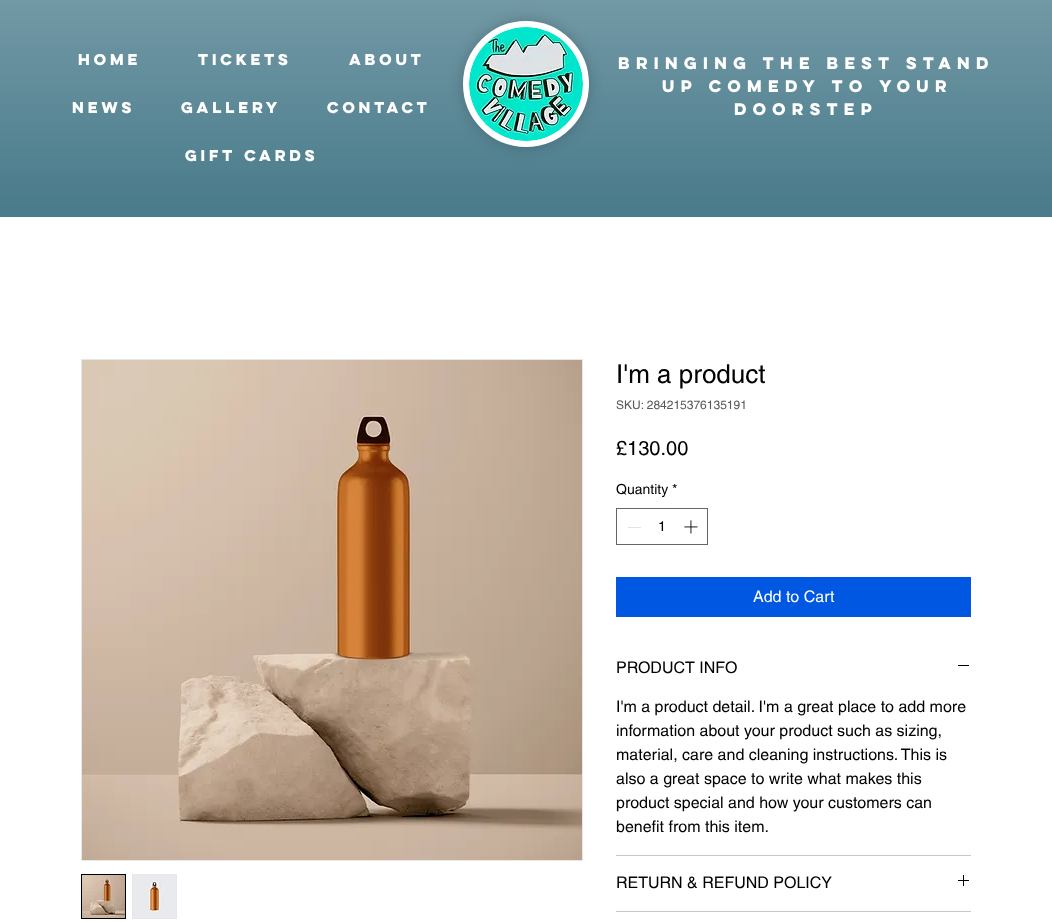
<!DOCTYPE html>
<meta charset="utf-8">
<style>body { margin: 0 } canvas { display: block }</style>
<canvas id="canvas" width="1052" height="922"></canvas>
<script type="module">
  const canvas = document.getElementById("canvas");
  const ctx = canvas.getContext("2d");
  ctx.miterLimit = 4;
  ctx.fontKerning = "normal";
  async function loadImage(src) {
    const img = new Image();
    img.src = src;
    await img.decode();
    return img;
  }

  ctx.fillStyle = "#ffffff";
  ctx.fillRect(0, 0, 1052, 922);
  ctx.fillStyle = "#417586";
  ctx.fillRect(0, 0, 1052, 217);
  ctx.drawImage(await loadImage("img1.png"), 0, 0, 1052, 217);
  ctx.letterSpacing = "0.75px";
  ctx.font = "bold 14px 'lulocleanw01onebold'";
  ctx.fillStyle = "#ffffff";
  ctx.fillText("HOME", 78, 65);
  ctx.fillText("TICKETS", 198, 65);
  ctx.fillText("ABOUT", 349, 65);
  ctx.fillText("NEWS", 72, 113);
  ctx.fillText("GALLERY", 181, 113);
  ctx.fillText("CONTACT", 327, 113);
  ctx.fillText("GIFT CARDS", 185, 161);
  ctx.fillStyle = "rgba(0, 0, 0, 0.2)";
  ctx.filter = "blur(7px)";
  ctx.beginPath();
  ctx.roundRect(463, 21, 126, 126, 63);
  ctx.fill();
  ctx.filter = "none";
  ctx.fillStyle = "#ffffff";
  ctx.beginPath();
  ctx.arc(526, 84, 60, 0, Math.PI * 2);
  ctx.fill();
  ctx.strokeStyle = "#ffffff";
  ctx.lineWidth = 6;
  ctx.stroke();
  ctx.drawImage(await loadImage("img2.png"), 469, 27, 114, 114);
  ctx.letterSpacing = "3px";
  ctx.font = "bold 15px 'lulocleanw01onebold'";
  ctx.fillText("BRINGING THE BEST STAND", 618, 69);
  ctx.fillText("UP COMEDY TO YOUR", 662, 92);
  ctx.fillText("DOORSTEP", 734, 115);
  ctx.strokeStyle = "#e8e6e6";
  ctx.lineWidth = 1;
  ctx.strokeRect(81.5, 359.5, 501, 501);
  ctx.drawImage(await loadImage("img3.png"), 82, 360, 500, 500);
  ctx.strokeStyle = "#000000";
  ctx.strokeRect(81.5, 874.5, 44, 44);
  ctx.drawImage(await loadImage("img4.png"), 82, 875, 43, 43);
  ctx.fillStyle = "#e8e6e6";
  ctx.fillRect(132, 874, 45, 45);
  ctx.drawImage(await loadImage("img5.png"), 133, 875, 43, 43);
  ctx.letterSpacing = "0px";
  ctx.font = "26px helvetica";
  ctx.fillStyle = "#000000";
  ctx.fillText("I'm a product", 616, 383);
  ctx.font = "12px helvetica";
  ctx.fillStyle = "#595959";
  ctx.fillText("SKU: 284215376135191", 616, 409);
  ctx.font = "20px helvetica";
  ctx.fillStyle = "#000000";
  ctx.fillText("£130.00", 616, 455);
  ctx.font = "14px helvetica";
  ctx.fillText("Quantity *", 616, 494);
  ctx.strokeStyle = "#666666";
  ctx.strokeRect(616.5, 508.5, 91, 36);
  ctx.fillStyle = "#e3e3e3";
  ctx.fillRect(628, 527, 13, 1);
  ctx.fillStyle = "#000000";
  ctx.fillText("1", 658, 531);
  ctx.drawImage(await loadImage("img6.png"), 684, 520, 14, 14);
  ctx.fillStyle = "#0057e1";
  ctx.fillRect(616, 577, 355, 40);
  ctx.font = "16px helvetica";
  ctx.fillStyle = "#ffffff";
  ctx.fillText("Add to Cart", 753, 602);
  ctx.fillStyle = "#c7c7c7";
  ctx.fillRect(616, 855, 355, 1);
  ctx.fillStyle = "#000000";
  ctx.fillText("PRODUCT INFO", 616, 673);
  ctx.fillRect(958, 665, 11, 1);
  ctx.fillText("I'm a product detail. I'm a great place to add more", 616, 712);
  ctx.fillText("information about your product such as sizing,", 616, 736);
  ctx.fillText("material, care and cleaning instructions. This is", 616, 760);
  ctx.fillText("also a great space to write what makes this", 616, 784);
  ctx.fillText("product special and how your customers can", 616, 808);
  ctx.fillText("benefit from this item.", 616, 832);
  ctx.fillStyle = "#c7c7c7";
  ctx.fillRect(616, 911, 355, 1);
  ctx.fillStyle = "#000000";
  ctx.fillText("RETURN & REFUND POLICY", 616, 888);
  ctx.drawImage(await loadImage("img7.png"), 958, 875, 11, 11);
</script>
